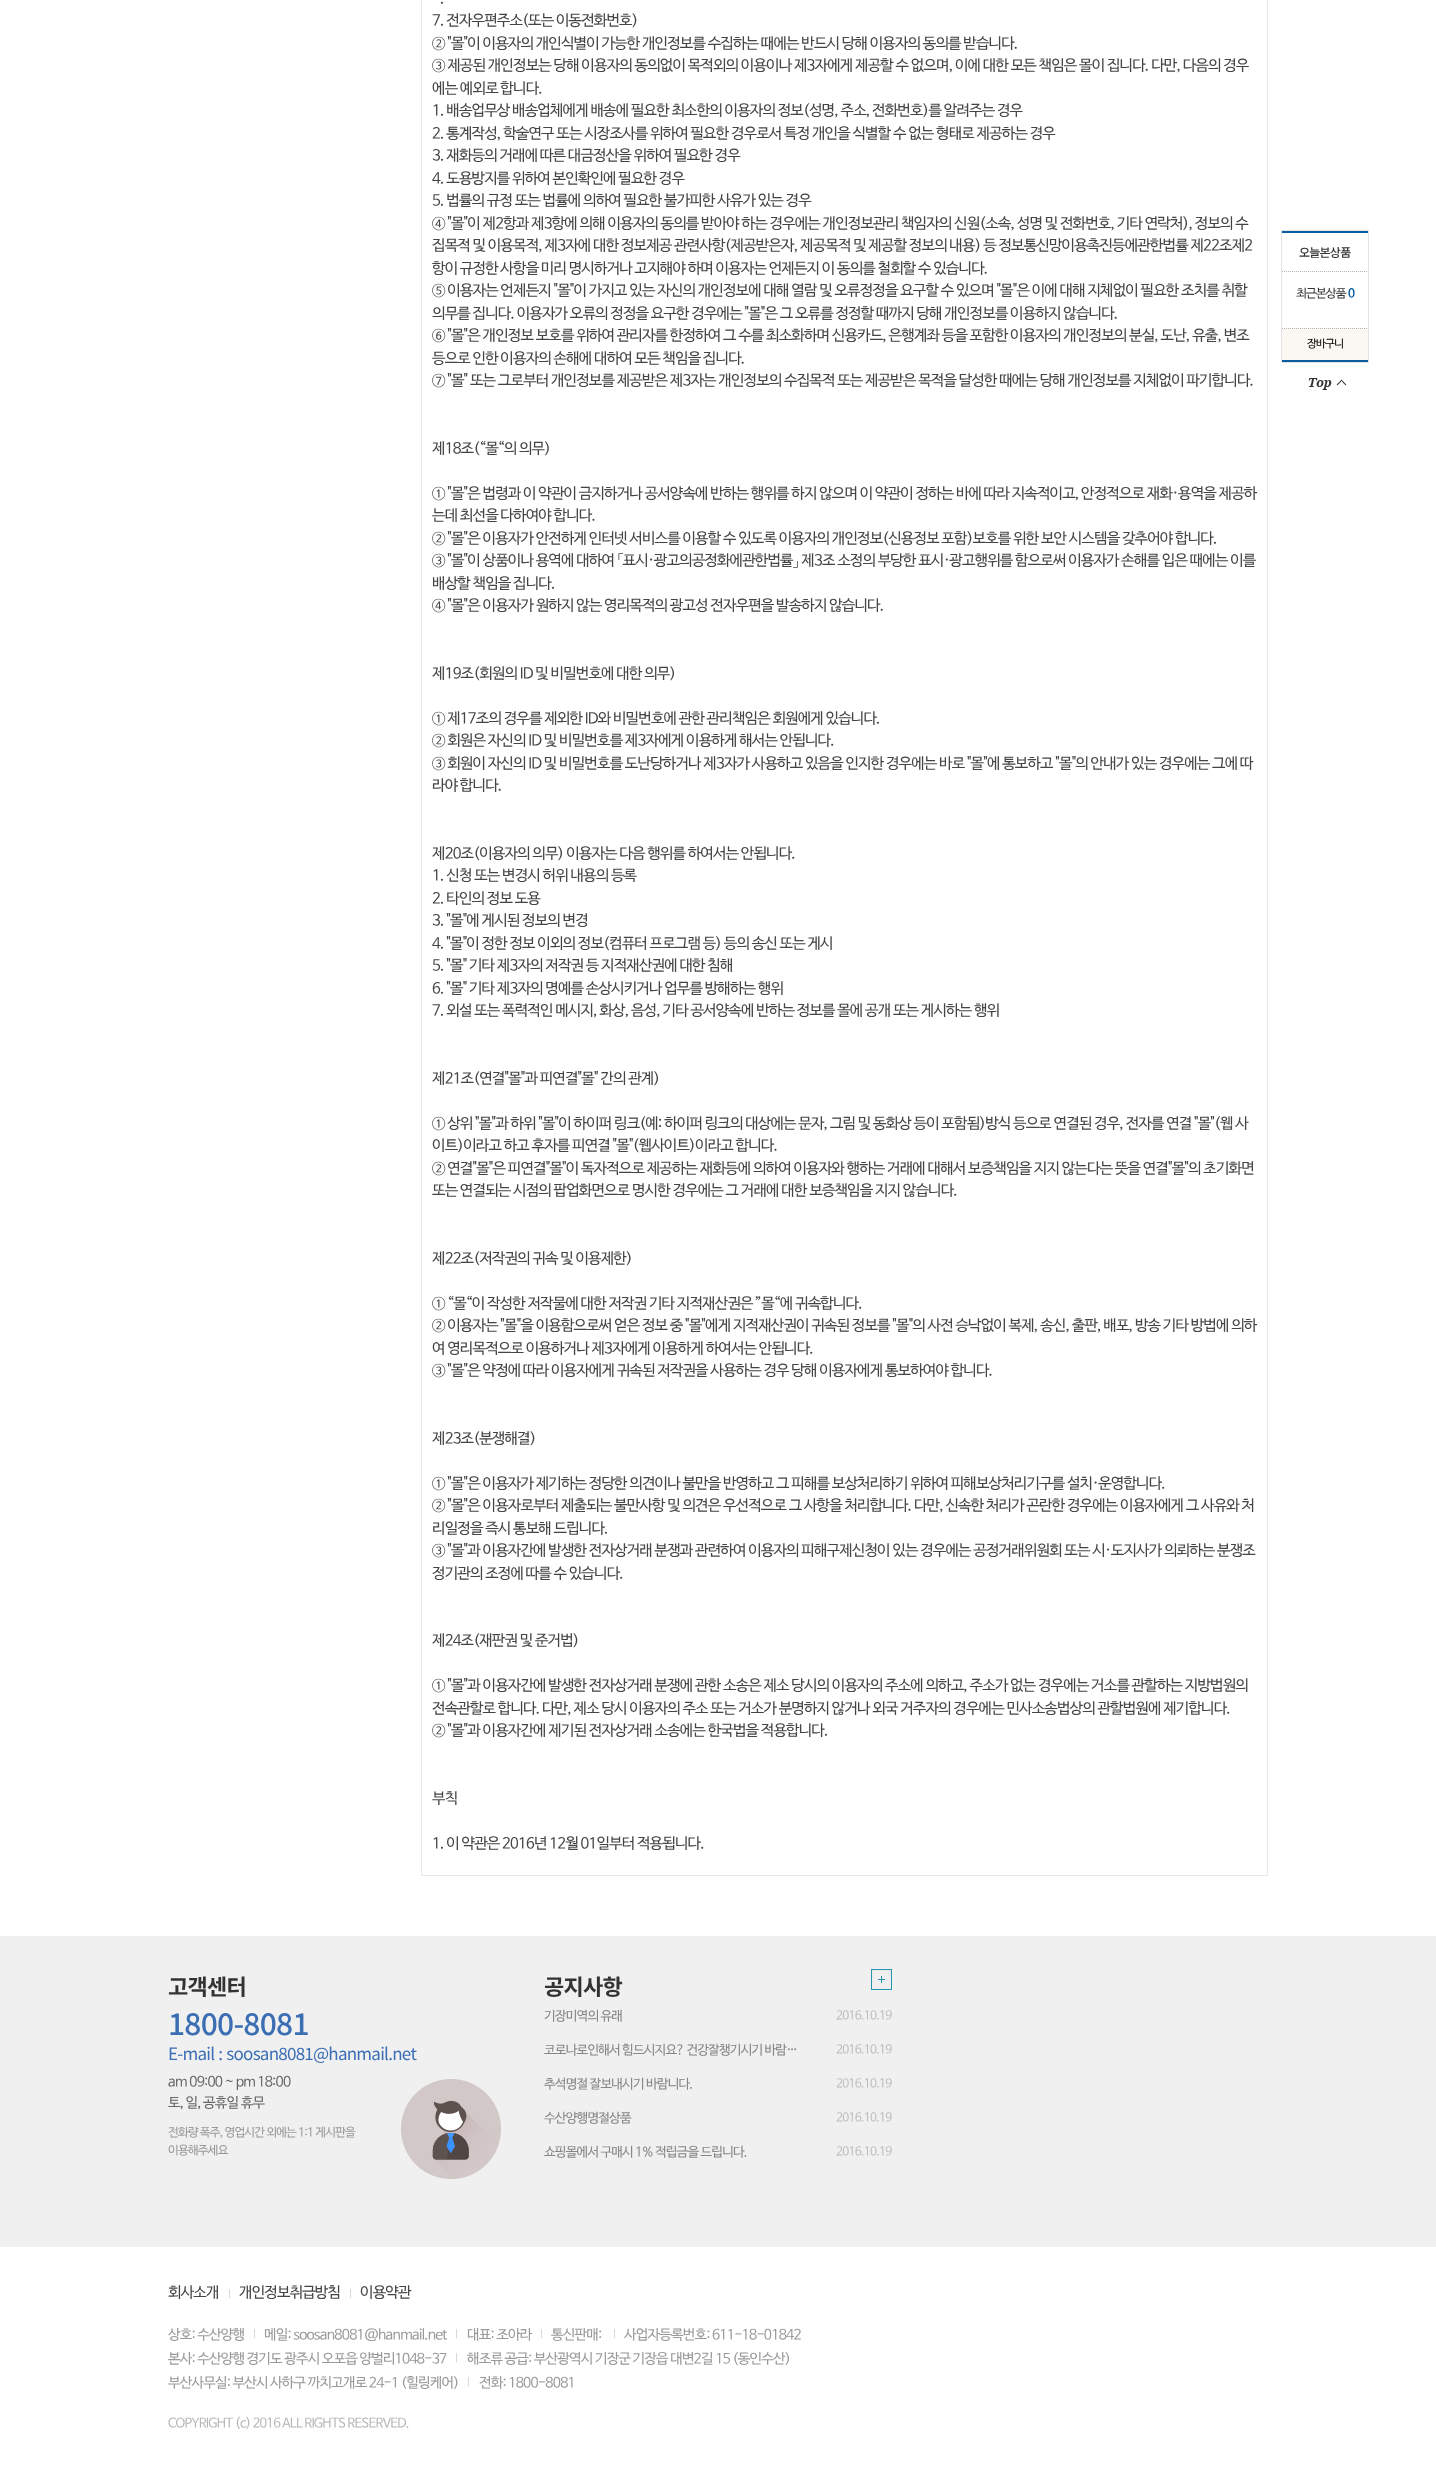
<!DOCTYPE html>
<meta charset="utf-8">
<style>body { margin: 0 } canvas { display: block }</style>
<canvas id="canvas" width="1436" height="2468"></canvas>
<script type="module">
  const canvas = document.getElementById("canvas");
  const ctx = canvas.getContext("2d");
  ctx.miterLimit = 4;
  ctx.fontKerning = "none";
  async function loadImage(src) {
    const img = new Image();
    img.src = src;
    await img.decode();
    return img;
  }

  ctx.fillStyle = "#ffffff";
  ctx.fillRect(0, 0, 1436, 2468);
  ctx.strokeStyle = "#e9e9e9";
  ctx.strokeRect(421.5, -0.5, 846, 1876);
  ctx.letterSpacing = "-0.75px";
  ctx.font = "15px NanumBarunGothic";
  ctx.fillStyle = "#444444";
  ctx.fillText(".", 440, 3);
  ctx.fillText("7. 전자우편주소(또는 이동전화번호)", 432, 25);
  ctx.fillText("② \"몰\"이 이용자의 개인식별이 가능한 개인정보를 수집하는 때에는 반드시 당해 이용자의 동의를 받습니다.", 432, 48);
  ctx.fillText("③ 제공된 개인정보는 당해 이용자의 동의없이 목적외의 이용이나 제3자에게 제공할 수 없으며, 이에 대한 모든 책임은 몰이 집니다. 다만, 다음의 경우", 432, 70);
  ctx.fillText("에는 예외로 합니다.", 432, 93);
  ctx.fillText("1. 배송업무상 배송업체에게 배송에 필요한 최소한의 이용자의 정보(성명, 주소, 전화번호)를 알려주는 경우", 432, 115);
  ctx.fillText("2. 통계작성, 학술연구 또는 시장조사를 위하여 필요한 경우로서 특정 개인을 식별할 수 없는 형태로 제공하는 경우", 432, 138);
  ctx.fillText("3. 재화등의 거래에 따른 대금정산을 위하여 필요한 경우", 432, 160);
  ctx.fillText("4. 도용방지를 위하여 본인확인에 필요한 경우", 432, 183);
  ctx.fillText("5. 법률의 규정 또는 법률에 의하여 필요한 불가피한 사유가 있는 경우", 432, 205);
  ctx.fillText("④ \"몰\"이 제2항과 제3항에 의해 이용자의 동의를 받아야 하는 경우에는 개인정보관리 책임자의 신원(소속, 성명 및 전화번호, 기타 연락처), 정보의 수", 432, 228);
  ctx.fillText("집목적 및 이용목적, 제3자에 대한 정보제공 관련사항(제공받은자, 제공목적 및 제공할 정보의 내용) 등 정보통신망이용촉진등에관한법률 제22조제2", 432, 250);
  ctx.fillText("항이 규정한 사항을 미리 명시하거나 고지해야 하며 이용자는 언제든지 이 동의를 철회할 수 있습니다.", 432, 273);
  ctx.fillText("⑤ 이용자는 언제든지 \"몰\"이 가지고 있는 자신의 개인정보에 대해 열람 및 오류정정을 요구할 수 있으며 \"몰\"은 이에 대해 지체없이 필요한 조치를 취할", 432, 295);
  ctx.fillText("의무를 집니다. 이용자가 오류의 정정을 요구한 경우에는 \"몰\"은 그 오류를 정정할 때까지 당해 개인정보를 이용하지 않습니다.", 432, 318);
  ctx.fillText("⑥ \"몰\"은 개인정보 보호를 위하여 관리자를 한정하여 그 수를 최소화하며 신용카드, 은행계좌 등을 포함한 이용자의 개인정보의 분실, 도난, 유출, 변조", 432, 340);
  ctx.fillText("등으로 인한 이용자의 손해에 대하여 모든 책임을 집니다.", 432, 363);
  ctx.fillText("⑦ \"몰\" 또는 그로부터 개인정보를 제공받은 제3자는 개인정보의 수집목적 또는 제공받은 목적을 달성한 때에는 당해 개인정보를 지체없이 파기합니다.", 432, 385);
  ctx.fillText("제18조(“몰“의 의무)", 432, 453);
  ctx.fillText("① \"몰\"은 법령과 이 약관이 금지하거나 공서양속에 반하는 행위를 하지 않으며 이 약관이 정하는 바에 따라 지속적이고, 안정적으로 재화·용역을 제공하", 432, 498);
  ctx.fillText("는데 최선을 다하여야 합니다.", 432, 520);
  ctx.fillText("② \"몰\"은 이용자가 안전하게 인터넷 서비스를 이용할 수 있도록 이용자의 개인정보(신용정보 포함)보호를 위한 보안 시스템을 갖추어야 합니다.", 432, 543);
  ctx.fillText("③ \"몰\"이 상품이나 용역에 대하여 「표시·광고의공정화에관한법률」 제3조 소정의 부당한 표시·광고행위를 함으로써 이용자가 손해를 입은 때에는 이를", 432, 565);
  ctx.fillText("배상할 책임을 집니다.", 432, 588);
  ctx.fillText("④ \"몰\"은 이용자가 원하지 않는 영리목적의 광고성 전자우편을 발송하지 않습니다.", 432, 610);
  ctx.fillText("제19조(회원의 ID 및 비밀번호에 대한 의무)", 432, 678);
  ctx.fillText("① 제17조의 경우를 제외한 ID와 비밀번호에 관한 관리책임은 회원에게 있습니다.", 432, 723);
  ctx.fillText("② 회원은 자신의 ID 및 비밀번호를 제3자에게 이용하게 해서는 안됩니다.", 432, 745);
  ctx.fillText("③ 회원이 자신의 ID 및 비밀번호를 도난당하거나 제3자가 사용하고 있음을 인지한 경우에는 바로 \"몰\"에 통보하고 \"몰\"의 안내가 있는 경우에는 그에 따", 432, 768);
  ctx.fillText("라야 합니다.", 432, 790);
  ctx.fillText("제20조(이용자의 의무) 이용자는 다음 행위를 하여서는 안됩니다.", 432, 858);
  ctx.fillText("1. 신청 또는 변경시 허위 내용의 등록", 432, 880);
  ctx.fillText("2. 타인의 정보 도용", 432, 903);
  ctx.fillText("3. \"몰\"에 게시된 정보의 변경", 432, 925);
  ctx.fillText("4. \"몰\"이 정한 정보 이외의 정보(컴퓨터 프로그램 등) 등의 송신 또는 게시", 432, 948);
  ctx.fillText("5. \"몰\" 기타 제3자의 저작권 등 지적재산권에 대한 침해", 432, 970);
  ctx.fillText("6. \"몰\" 기타 제3자의 명예를 손상시키거나 업무를 방해하는 행위", 432, 993);
  ctx.fillText("7. 외설 또는 폭력적인 메시지, 화상, 음성, 기타 공서양속에 반하는 정보를 몰에 공개 또는 게시하는 행위", 432, 1015);
  ctx.fillText("제21조(연결\"몰\"과 피연결\"몰\" 간의 관계)", 432, 1083);
  ctx.fillText("① 상위 \"몰\"과 하위 \"몰\"이 하이퍼 링크(예: 하이퍼 링크의 대상에는 문자, 그림 및 동화상 등이 포함됨)방식 등으로 연결된 경우, 전자를 연결 \"몰\"(웹 사", 432, 1128);
  ctx.fillText("이트)이라고 하고 후자를 피연결 \"몰\"(웹사이트)이라고 합니다.", 432, 1150);
  ctx.fillText("② 연결\"몰\"은 피연결\"몰\"이 독자적으로 제공하는 재화등에 의하여 이용자와 행하는 거래에 대해서 보증책임을 지지 않는다는 뜻을 연결\"몰\"의 초기화면", 432, 1173);
  ctx.fillText("또는 연결되는 시점의 팝업화면으로 명시한 경우에는 그 거래에 대한 보증책임을 지지 않습니다.", 432, 1195);
  ctx.fillText("제22조(저작권의 귀속 및 이용제한)", 432, 1263);
  ctx.fillText("① “몰“이 작성한 저작물에 대한 저작권 기타 지적재산권은 ”몰“에 귀속합니다.", 432, 1308);
  ctx.fillText("② 이용자는 \"몰\"을 이용함으로써 얻은 정보 중 \"몰\"에게 지적재산권이 귀속된 정보를 \"몰\"의 사전 승낙없이 복제, 송신, 출판, 배포, 방송 기타 방법에 의하", 432, 1330);
  ctx.fillText("여 영리목적으로 이용하거나 제3자에게 이용하게 하여서는 안됩니다.", 432, 1353);
  ctx.fillText("③ \"몰\"은 약정에 따라 이용자에게 귀속된 저작권을 사용하는 경우 당해 이용자에게 통보하여야 합니다.", 432, 1375);
  ctx.fillText("제23조(분쟁해결)", 432, 1443);
  ctx.fillText("① \"몰\"은 이용자가 제기하는 정당한 의견이나 불만을 반영하고 그 피해를 보상처리하기 위하여 피해보상처리기구를 설치·운영합니다.", 432, 1488);
  ctx.fillText("② \"몰\"은 이용자로부터 제출되는 불만사항 및 의견은 우선적으로 그 사항을 처리합니다. 다만, 신속한 처리가 곤란한 경우에는 이용자에게 그 사유와 처", 432, 1510);
  ctx.fillText("리일정을 즉시 통보해 드립니다.", 432, 1533);
  ctx.fillText("③ \"몰\"과 이용자간에 발생한 전자상거래 분쟁과 관련하여 이용자의 피해구제신청이 있는 경우에는 공정거래위원회 또는 시·도지사가 의뢰하는 분쟁조", 432, 1555);
  ctx.fillText("정기관의 조정에 따를 수 있습니다.", 432, 1578);
  ctx.fillText("제24조(재판권 및 준거법)", 432, 1645);
  ctx.fillText("① \"몰\"과 이용자간에 발생한 전자상거래 분쟁에 관한 소송은 제소 당시의 이용자의 주소에 의하고, 주소가 없는 경우에는 거소를 관할하는 지방법원의", 432, 1690);
  ctx.fillText("전속관할로 합니다. 다만, 제소 당시 이용자의 주소 또는 거소가 분명하지 않거나 외국 거주자의 경우에는 민사소송법상의 관할법원에 제기합니다.", 432, 1713);
  ctx.fillText("② \"몰\"과 이용자간에 제기된 전자상거래 소송에는 한국법을 적용합니다.", 432, 1735);
  ctx.fillText("부칙", 432, 1803);
  ctx.fillText("1. 이 약관은 2016년 12월 01일부터 적용됩니다.", 432, 1848);
  ctx.strokeStyle = "#e4e4e4";
  ctx.strokeRect(1281.5, 230.5, 87, 132);
  ctx.fillStyle = "#0b5c9f";
  ctx.fillRect(1282, 231, 86, 2);
  ctx.beginPath();
  ctx.moveTo(1282, 271.5);
  ctx.lineTo(1368, 271.5);
  ctx.strokeStyle = "#b4b4b4";
  ctx.setLineDash([1, 1]);
  ctx.stroke();
  ctx.font = "500 12px Noto Sans KR";
  ctx.fillStyle = "#333333";
  ctx.fillText("오늘본상품", 1299, 257);
  ctx.font = "12px NanumBarunGothic";
  ctx.fillText("최근본상품", 1296, 297);
  ctx.font = "bold 12px NanumBarunGothic";
  ctx.fillStyle = "#0b5c9f";
  ctx.fillText("0", 1348, 297);
  ctx.fillStyle = "#fbf7f2";
  ctx.fillRect(1282, 328, 86, 32);
  ctx.beginPath();
  ctx.moveTo(1282, 328.5);
  ctx.lineTo(1368, 328.5);
  ctx.stroke();
  ctx.fillStyle = "#0b5c9f";
  ctx.fillRect(1282, 360, 86, 2);
  ctx.font = "11px NanumBarunGothic";
  ctx.fillStyle = "#000000";
  ctx.fillText("장바구니", 1307, 347);
  ctx.drawImage(await loadImage("img1.png"), 1308, 378, 39, 12);
  ctx.fillStyle = "#f0f0f0";
  ctx.fillRect(0, 1936, 1436, 311);
  ctx.drawImage(await loadImage("img2.png"), 401, 2079, 100, 100);
  ctx.font = "bold 22px Noto Sans KR";
  ctx.fillStyle = "#333333";
  ctx.fillText("고객센터", 168, 1995);
  ctx.font = "500 30px Noto Sans KR";
  ctx.fillStyle = "#3c6eb4";
  ctx.fillText("1800-8081", 168, 2035);
  ctx.wordSpacing = "1px";
  ctx.font = "17px Noto Sans KR";
  ctx.fillText("E-mail : soosan8081@hanmail.net", 168, 2060);
  ctx.wordSpacing = "0px";
  ctx.font = "14px NanumBarunGothic";
  ctx.fillStyle = "#666666";
  ctx.fillText("am 09:00 ~ pm 18:00", 168, 2086);
  ctx.fillText("토, 일, 공휴일 휴무", 168, 2107);
  ctx.font = "12px NanumBarunGothic";
  ctx.fillStyle = "#999999";
  ctx.fillText("전화량 폭주, 영업시간 외에는 1:1 게시판을", 168, 2136);
  ctx.fillText("이용해주세요", 168, 2154);
  ctx.font = "bold 22px Noto Sans KR";
  ctx.fillStyle = "#333333";
  ctx.fillText("공지사항", 544, 1995);
  ctx.drawImage(await loadImage("img3.png"), 871, 1969, 21, 21);
  ctx.font = "13px NanumBarunGothic";
  ctx.fillStyle = "#868686";
  ctx.fillText("기장미역의 유래", 544, 2020);
  ctx.font = "12px NanumBarunGothic";
  ctx.fillStyle = "#bcbcbc";
  ctx.fillText("2016.10.19", 836, 2019);
  ctx.font = "13px NanumBarunGothic";
  ctx.fillStyle = "#868686";
  ctx.fillText("코로나로인해서 힘드시지요? 건강잘챙기시기 바람…", 544, 2054);
  ctx.font = "12px NanumBarunGothic";
  ctx.fillStyle = "#bcbcbc";
  ctx.fillText("2016.10.19", 836, 2053);
  ctx.font = "13px NanumBarunGothic";
  ctx.fillStyle = "#868686";
  ctx.fillText("추석명절 잘보내시기 바람니다.", 544, 2088);
  ctx.font = "12px NanumBarunGothic";
  ctx.fillStyle = "#bcbcbc";
  ctx.fillText("2016.10.19", 836, 2087);
  ctx.font = "13px NanumBarunGothic";
  ctx.fillStyle = "#868686";
  ctx.fillText("수산양행명절상품", 544, 2122);
  ctx.font = "12px NanumBarunGothic";
  ctx.fillStyle = "#bcbcbc";
  ctx.fillText("2016.10.19", 836, 2121);
  ctx.font = "13px NanumBarunGothic";
  ctx.fillStyle = "#868686";
  ctx.fillText("쇼핑몰에서 구매시 1% 적립금을 드립니다.", 544, 2156);
  ctx.font = "12px NanumBarunGothic";
  ctx.fillStyle = "#bcbcbc";
  ctx.fillText("2016.10.19", 836, 2155);
  ctx.font = "15px NanumBarunGothic";
  ctx.fillStyle = "#444444";
  ctx.fillText("회사소개", 168, 2297);
  ctx.fillStyle = "#d9d9d9";
  ctx.fillRect(229, 2289, 1, 9);
  ctx.fillStyle = "#444444";
  ctx.fillText("개인정보취급방침", 239, 2297);
  ctx.fillStyle = "#d9d9d9";
  ctx.fillRect(350, 2289, 1, 9);
  ctx.fillStyle = "#444444";
  ctx.fillText("이용약관", 360, 2297);
  ctx.font = "14px NanumBarunGothic";
  ctx.fillStyle = "#999999";
  ctx.fillText("상호: 수산양행", 168, 2339);
  ctx.fillStyle = "#d9d9d9";
  ctx.fillRect(254, 2329, 1, 9);
  ctx.fillStyle = "#999999";
  ctx.fillText("메일: soosan8081@hanmail.net", 264, 2339);
  ctx.fillStyle = "#d9d9d9";
  ctx.fillRect(456, 2329, 1, 9);
  ctx.fillStyle = "#999999";
  ctx.fillText("대표: 조아라", 467, 2339);
  ctx.fillStyle = "#d9d9d9";
  ctx.fillRect(541, 2329, 1, 9);
  ctx.fillStyle = "#999999";
  ctx.fillText("통신판매:", 551, 2339);
  ctx.fillStyle = "#d9d9d9";
  ctx.fillRect(614, 2329, 1, 9);
  ctx.fillStyle = "#999999";
  ctx.fillText("사업자등록번호: 611-18-01842", 624, 2339);
  ctx.fillText("본사: 수산양행 경기도 광주시 오포읍 양벌리1048-37", 168, 2363);
  ctx.fillStyle = "#d9d9d9";
  ctx.fillRect(456, 2353, 1, 9);
  ctx.fillStyle = "#999999";
  ctx.fillText("해조류 공급: 부산광역시 기장군 기장읍 대변2길 15 (동인수산)", 467, 2363);
  ctx.fillText("부산사무실: 부산시 사하구 까치고개로 24-1 (힐링케어)", 168, 2387);
  ctx.fillStyle = "#d9d9d9";
  ctx.fillRect(468, 2377, 1, 9);
  ctx.fillStyle = "#999999";
  ctx.fillText("전화: 1800-8081", 479, 2387);
  ctx.font = "13px NanumBarunGothic";
  ctx.fillStyle = "#b5b5b5";
  ctx.fillText("COPYRIGHT (c) 2016 ALL RIGHTS RESERVED.", 168, 2427);
</script>
